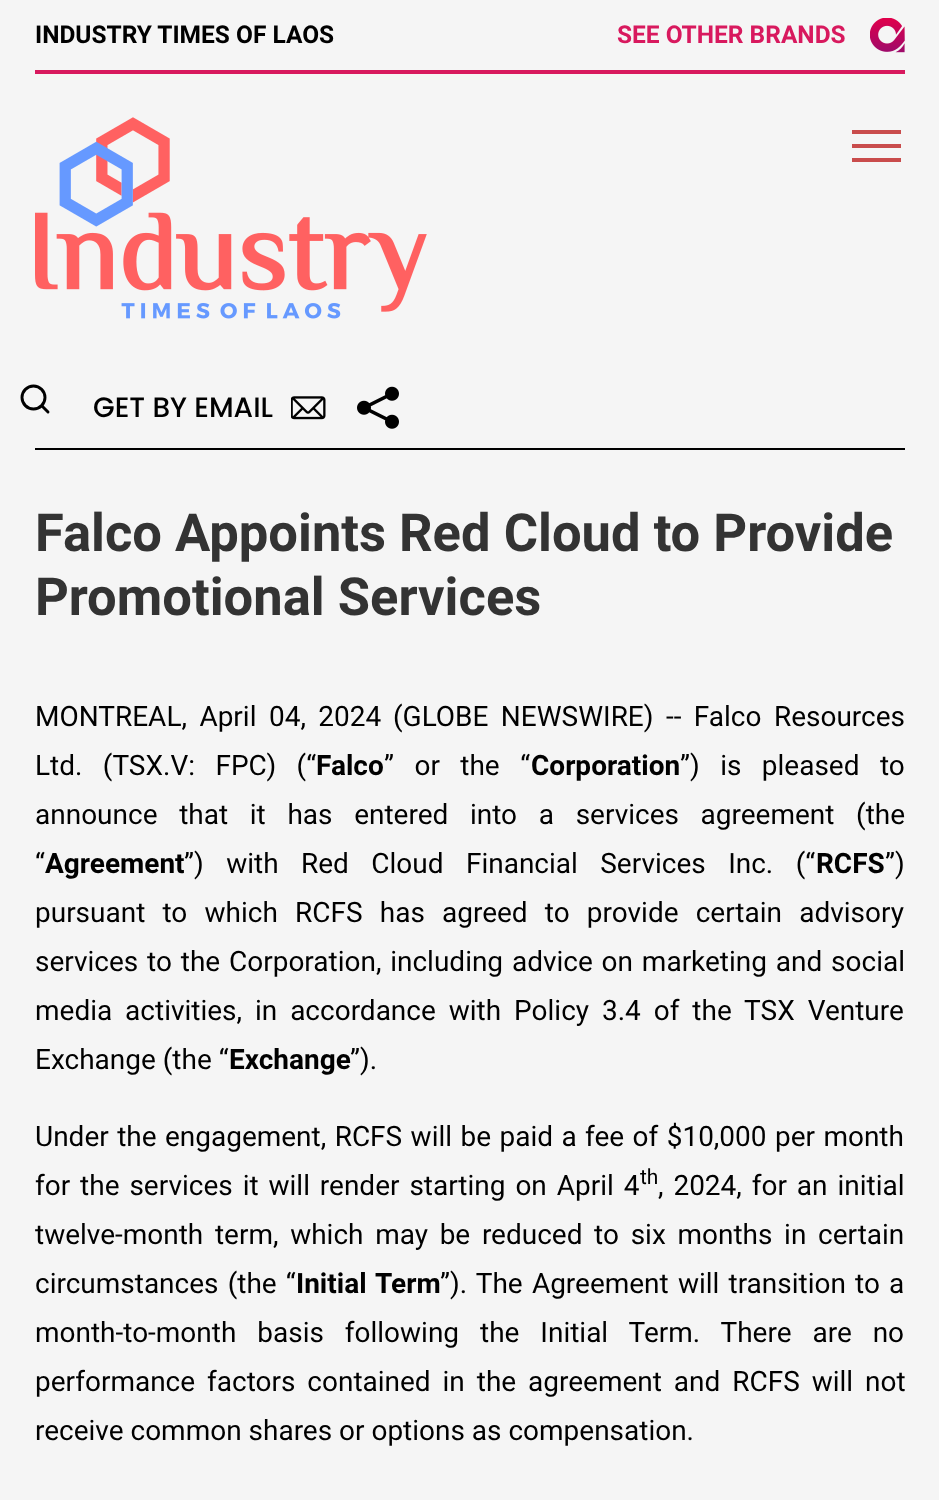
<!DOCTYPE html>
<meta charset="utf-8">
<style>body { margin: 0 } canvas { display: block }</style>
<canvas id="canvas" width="939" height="1500"></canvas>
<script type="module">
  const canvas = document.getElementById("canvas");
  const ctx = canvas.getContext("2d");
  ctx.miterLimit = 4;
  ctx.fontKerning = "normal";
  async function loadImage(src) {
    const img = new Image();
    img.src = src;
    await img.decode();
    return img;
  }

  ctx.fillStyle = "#f5f5f5";
  ctx.fillRect(0, 0, 939, 1500);
  ctx.fillStyle = "#d8195e";
  ctx.fillRect(35, 70, 870, 4);
  ctx.font = "bold 24.5px Roboto";
  ctx.fillStyle = "#000000";
  ctx.fillText("INDUSTRY TIMES OF LAOS", 35, 43);
  ctx.fillStyle = "#d8195e";
  ctx.fillText("SEE OTHER BRANDS", 617, 43);
  ctx.drawImage(await loadImage("img1.png"), 870, 18, 35, 35);
  ctx.fillStyle = "#000000";
  ctx.fillRect(35, 448, 870, 2);
  ctx.drawImage(await loadImage("img2.png"), 35, 117, 392, 202);
  ctx.fillStyle = "#c94c4c";
  ctx.fillRect(852, 130, 49, 4);
  ctx.fillRect(852, 144, 49, 4);
  ctx.fillRect(852, 158, 49, 4);
  ctx.beginPath();
  ctx.arc(33.5, 397.5, 11.5, 0, Math.PI * 2);
  ctx.strokeStyle = "#000000";
  ctx.lineWidth = 2.9;
  ctx.stroke();
  ctx.beginPath();
  ctx.moveTo(48, 412);
  ctx.lineTo(42, 406);
  ctx.lineCap = "round";
  ctx.lineJoin = "round";
  ctx.stroke();
  ctx.font = "500 28px Poppins";
  ctx.fillStyle = "#000000";
  ctx.fillText("GET BY EMAIL", 93, 417);
  ctx.drawImage(await loadImage("img3.png"), 291, 396, 35, 24);
  ctx.drawImage(await loadImage("img4.png"), 357, 386, 42, 43);
  ctx.font = "bold 52.5px Roboto";
  ctx.fillStyle = "#333333";
  ctx.fillText("Falco Appoints Red Cloud to Provide", 35, 551);
  ctx.fillText("Promotional Services", 35, 615);
  ctx.wordSpacing = "5.5px";
  ctx.font = "28px Roboto";
  ctx.fillStyle = "#000000";
  ctx.fillText("MONTREAL, April", 35, 726);
  ctx.fillText("04, 2024", 269, 726);
  ctx.fillText("(GLOBE NEWSWIRE) -- Falco Resources", 393, 726);
  ctx.wordSpacing = "13.5px";
  ctx.fillText("Ltd. (TSX.V: FPC) (“", 35, 775);
  ctx.wordSpacing = "0px";
  ctx.font = "bold 28px Roboto";
  ctx.fillText("Falco", 316, 775);
  ctx.wordSpacing = "13.5px";
  ctx.font = "28px Roboto";
  ctx.fillText("” or the “", 384, 775);
  ctx.wordSpacing = "0px";
  ctx.font = "bold 28px Roboto";
  ctx.fillText("Corporation", 531, 775);
  ctx.wordSpacing = "13.5px";
  ctx.font = "28px Roboto";
  ctx.fillText("”) is pleased to", 680, 775);
  ctx.wordSpacing = "14.75px";
  ctx.fillText("announce that it has entered into a services agreement (the", 35, 824);
  ctx.wordSpacing = "0px";
  ctx.fillText("“", 35, 873);
  ctx.font = "bold 28px Roboto";
  ctx.fillText("Agreement", 45, 873);
  ctx.wordSpacing = "15.5px";
  ctx.font = "28px Roboto";
  ctx.fillText("”) with Red Cloud Financial Services Inc. (“", 184, 873);
  ctx.wordSpacing = "0px";
  ctx.font = "bold 28px Roboto";
  ctx.fillText("RCFS", 816, 873);
  ctx.font = "28px Roboto";
  ctx.fillText("”)", 885, 873);
  ctx.wordSpacing = "10.25px";
  ctx.fillText("pursuant to which RCFS has agreed to provide certain advisory", 35, 922);
  ctx.wordSpacing = "1.9px";
  ctx.fillText("services to the Corporation, including advice on marketing and social", 35, 971);
  ctx.wordSpacing = "6px";
  ctx.fillText("media activities, in accordance with Policy 3.4 of the TSX Venture", 35, 1020);
  ctx.wordSpacing = "0px";
  ctx.fillText("Exchange (the “", 35, 1069);
  ctx.font = "bold 28px Roboto";
  ctx.fillText("Exchange", 229, 1069);
  ctx.font = "28px Roboto";
  ctx.fillText("”).", 350, 1069);
  ctx.wordSpacing = "1.5px";
  ctx.fillText("Under the engagement, RCFS will be paid a fee of $10,000 per month", 35, 1146);
  ctx.wordSpacing = "3px";
  ctx.fillText("for the services it will render starting on April 4", 35, 1195);
  ctx.wordSpacing = "0px";
  ctx.font = "21px Roboto";
  ctx.fillText("th", 640, 1184);
  ctx.wordSpacing = "3px";
  ctx.font = "28px Roboto";
  ctx.fillText(", 2024, for an initial", 658, 1195);
  ctx.wordSpacing = "4.75px";
  ctx.fillText("twelve-month term, which may be reduced to six months in certain", 35, 1244);
  ctx.wordSpacing = "2.25px";
  ctx.fillText("circumstances (the “", 35, 1293);
  ctx.font = "bold 28px Roboto";
  ctx.fillText("Initial Term", 296, 1293);
  ctx.font = "28px Roboto";
  ctx.fillText("”). The Agreement will transition to a", 440, 1293);
  ctx.wordSpacing = "14px";
  ctx.fillText("month-to-month basis following the Initial Term. There are no", 35, 1342);
  ctx.wordSpacing = "5px";
  ctx.fillText("performance factors contained in the agreement and RCFS will not", 35, 1391);
  ctx.wordSpacing = "0px";
  ctx.fillText("receive common shares or options as compensation.", 35, 1440);
</script>
